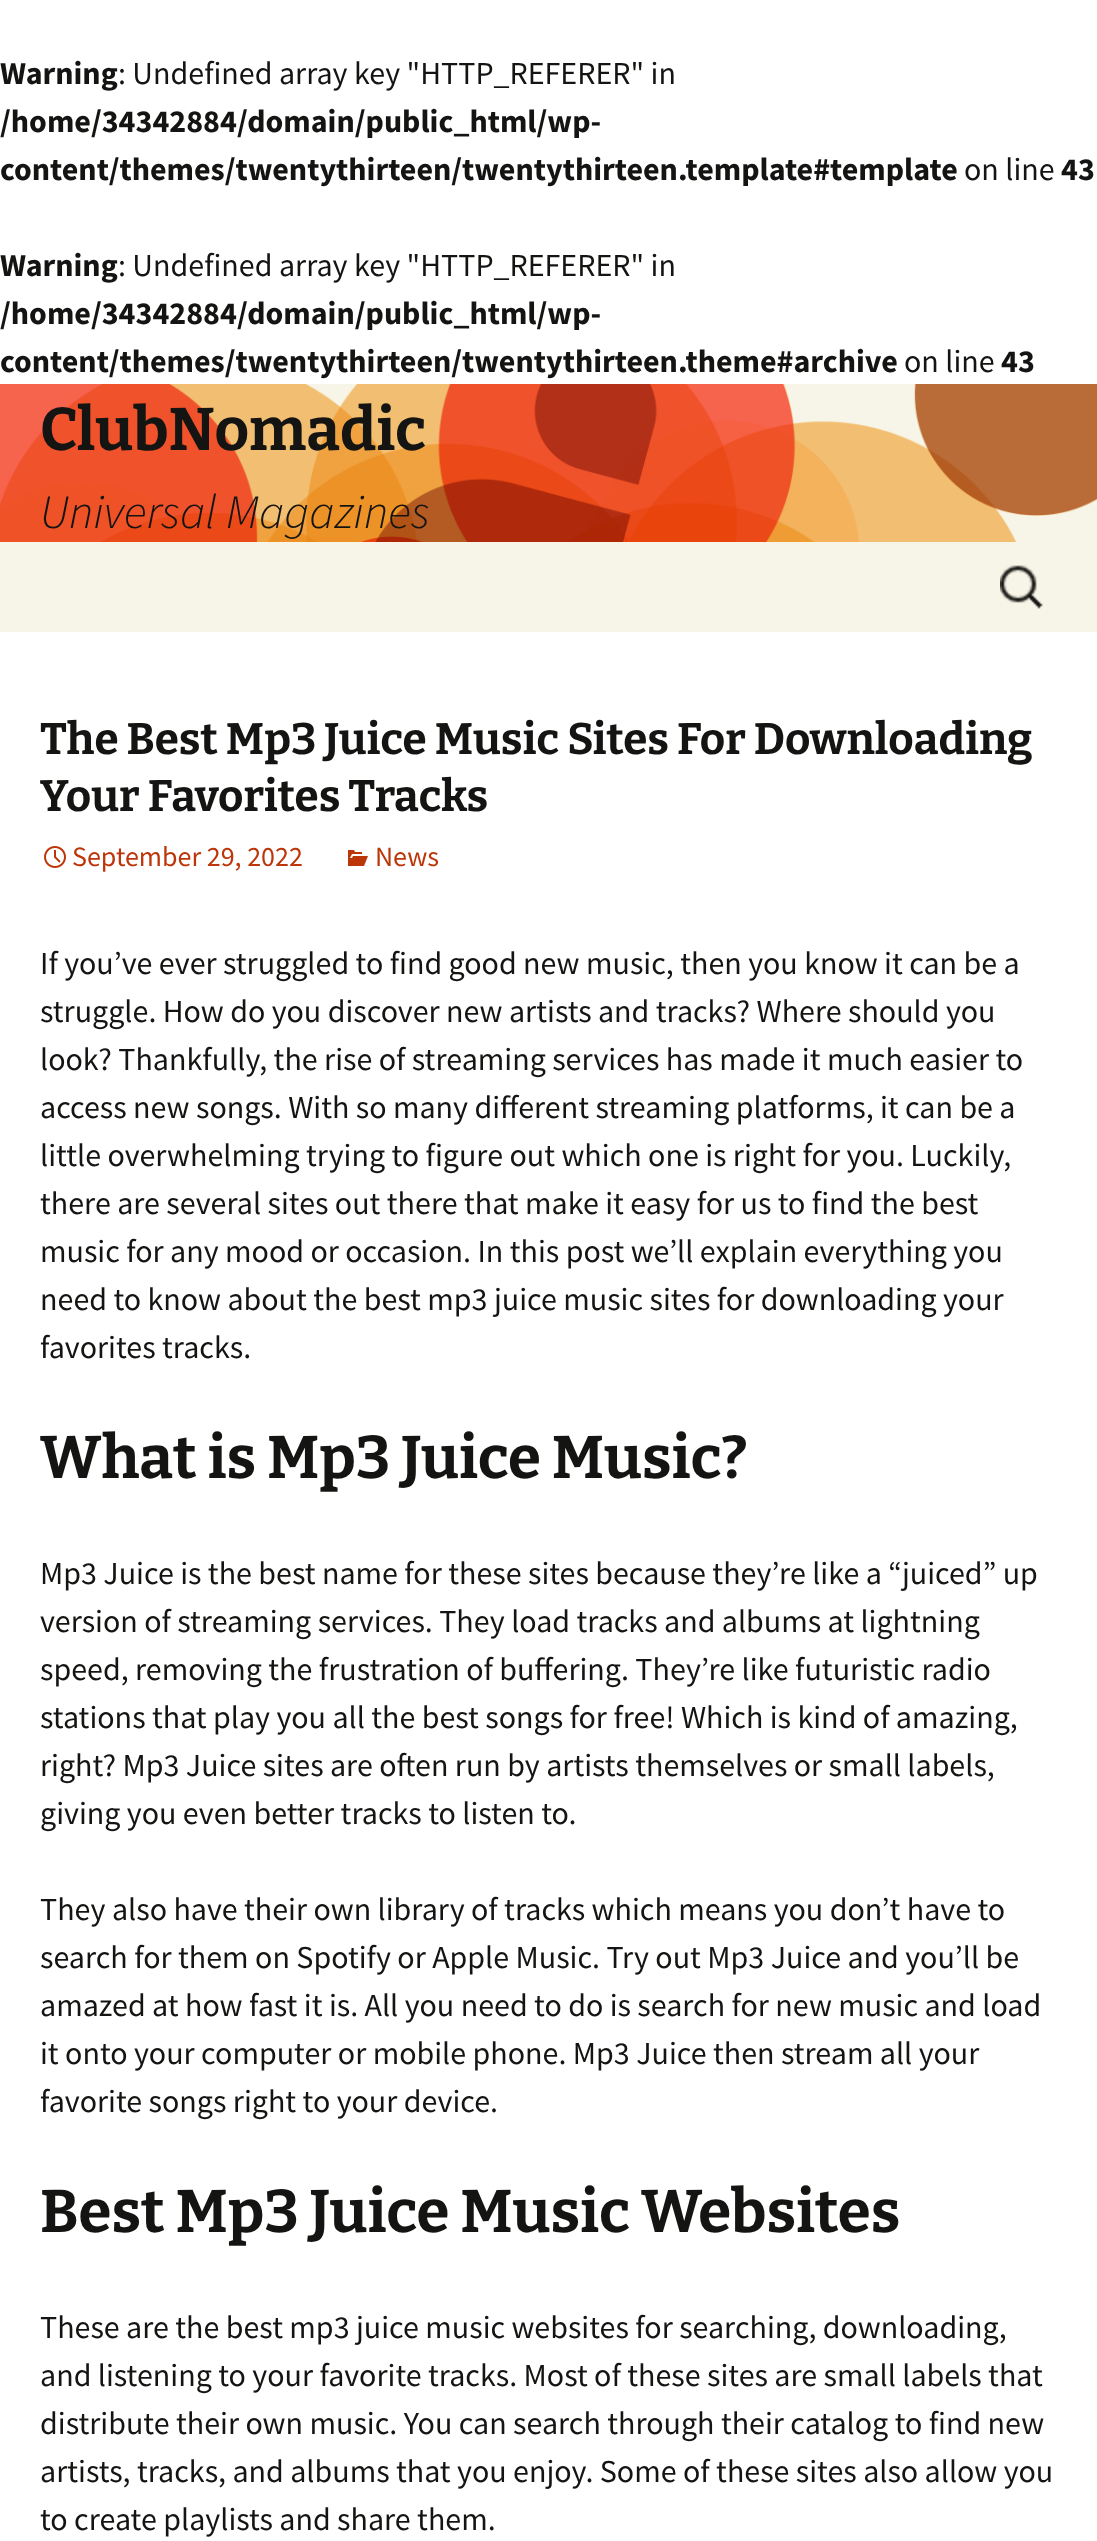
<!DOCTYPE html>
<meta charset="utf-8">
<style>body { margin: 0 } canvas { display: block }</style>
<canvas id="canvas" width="1097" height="2541"></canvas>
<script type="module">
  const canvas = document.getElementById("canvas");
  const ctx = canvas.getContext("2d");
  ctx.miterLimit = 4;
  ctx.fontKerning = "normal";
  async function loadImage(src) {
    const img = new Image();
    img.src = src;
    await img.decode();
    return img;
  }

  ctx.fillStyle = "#ffffff";
  ctx.fillRect(0, 0, 1097, 2541);
  ctx.font = "bold 32px Source Sans Pro";
  ctx.fillStyle = "#141412";
  ctx.fillText("Warning", 0, 84);
  ctx.font = "32px Source Sans Pro";
  ctx.fillText(": Undefined array key \"HTTP_REFERER\" in", 118, 84);
  ctx.font = "bold 32px Source Sans Pro";
  ctx.fillText("/home/34342884/domain/public_html/wp-", 0, 132);
  ctx.fillText("content/themes/twentythirteen/twentythirteen.template#template", 0, 180);
  ctx.font = "32px Source Sans Pro";
  ctx.fillText("on line", 964, 180);
  ctx.font = "bold 32px Source Sans Pro";
  ctx.fillText("43", 1061, 180);
  ctx.fillText("Warning", 0, 276);
  ctx.font = "32px Source Sans Pro";
  ctx.fillText(": Undefined array key \"HTTP_REFERER\" in", 118, 276);
  ctx.font = "bold 32px Source Sans Pro";
  ctx.fillText("/home/34342884/domain/public_html/wp-", 0, 324);
  ctx.fillText("content/themes/twentythirteen/twentythirteen.theme#archive", 0, 372);
  ctx.font = "32px Source Sans Pro";
  ctx.fillText("on line", 904, 372);
  ctx.font = "bold 32px Source Sans Pro";
  ctx.fillText("43", 1001, 372);
  ctx.drawImage(await loadImage("img1.png"), 0, 384, 1097, 158);
  ctx.font = "bold 60px Bitter";
  ctx.fillText("ClubNomadic", 40, 450);
  ctx.font = "italic 300 48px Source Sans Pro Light";
  ctx.fillText("Universal Magazines", 40, 528);
  ctx.fillStyle = "#f7f5e7";
  ctx.fillRect(0, 542, 1097, 90);
  ctx.drawImage(await loadImage("img2.png"), 1000, 565, 43, 44);
  ctx.font = "bold 44px Bitter";
  ctx.fillStyle = "#141412";
  ctx.fillText("The Best Mp3 Juice Music Sites For Downloading", 40, 754);
  ctx.fillText("Your Favorites Tracks", 40, 811);
  ctx.drawImage(await loadImage("img3.png"), 44, 846, 22, 22);
  ctx.font = "28px Source Sans Pro";
  ctx.fillStyle = "#bc360a";
  ctx.fillText("September 29, 2022", 72, 866);
  ctx.drawImage(await loadImage("img4.png"), 348, 850, 20, 16);
  ctx.fillText("News", 375, 866);
  ctx.font = "32px Source Sans Pro";
  ctx.fillStyle = "#141412";
  ctx.fillText("If you’ve ever struggled to find good new music, then you know it can be a", 40, 974);
  ctx.fillText("struggle. How do you discover new artists and tracks? Where should you", 40, 1022);
  ctx.fillText("look? Thankfully, the rise of streaming services has made it much easier to", 40, 1070);
  ctx.fillText("access new songs. With so many different streaming platforms, it can be a", 40, 1118);
  ctx.fillText("little overwhelming trying to figure out which one is right for you. Luckily,", 40, 1166);
  ctx.fillText("there are several sites out there that make it easy for us to find the best", 40, 1214);
  ctx.fillText("music for any mood or occasion. In this post we’ll explain everything you", 40, 1262);
  ctx.fillText("need to know about the best mp3 juice music sites for downloading your", 40, 1310);
  ctx.fillText("favorites tracks.", 40, 1358);
  ctx.font = "bold 60px Bitter";
  ctx.fillText("What is Mp3 Juice Music?", 40, 1478);
  ctx.font = "32px Source Sans Pro";
  ctx.fillText("Mp3 Juice is the best name for these sites because they’re like a “juiced” up", 40, 1584);
  ctx.fillText("version of streaming services. They load tracks and albums at lightning", 40, 1632);
  ctx.fillText("speed, removing the frustration of buffering. They’re like futuristic radio", 40, 1680);
  ctx.fillText("stations that play you all the best songs for free! Which is kind of amazing,", 40, 1728);
  ctx.fillText("right? Mp3 Juice sites are often run by artists themselves or small labels,", 40, 1776);
  ctx.fillText("giving you even better tracks to listen to.", 40, 1824);
  ctx.fillText("They also have their own library of tracks which means you don’t have to", 40, 1920);
  ctx.fillText("search for them on Spotify or Apple Music. Try out Mp3 Juice and you’ll be", 40, 1968);
  ctx.fillText("amazed at how fast it is. All you need to do is search for new music and load", 40, 2016);
  ctx.fillText("it onto your computer or mobile phone. Mp3 Juice then stream all your", 40, 2064);
  ctx.fillText("favorite songs right to your device.", 40, 2112);
  ctx.font = "bold 60px Bitter";
  ctx.fillText("Best Mp3 Juice Music Websites", 40, 2232);
  ctx.font = "32px Source Sans Pro";
  ctx.fillText("These are the best mp3 juice music websites for searching, downloading,", 40, 2338);
  ctx.fillText("and listening to your favorite tracks. Most of these sites are small labels that", 40, 2386);
  ctx.fillText("distribute their own music. You can search through their catalog to find new", 40, 2434);
  ctx.fillText("artists, tracks, and albums that you enjoy. Some of these sites also allow you", 40, 2482);
  ctx.fillText("to create playlists and share them.", 40, 2530);
</script>
